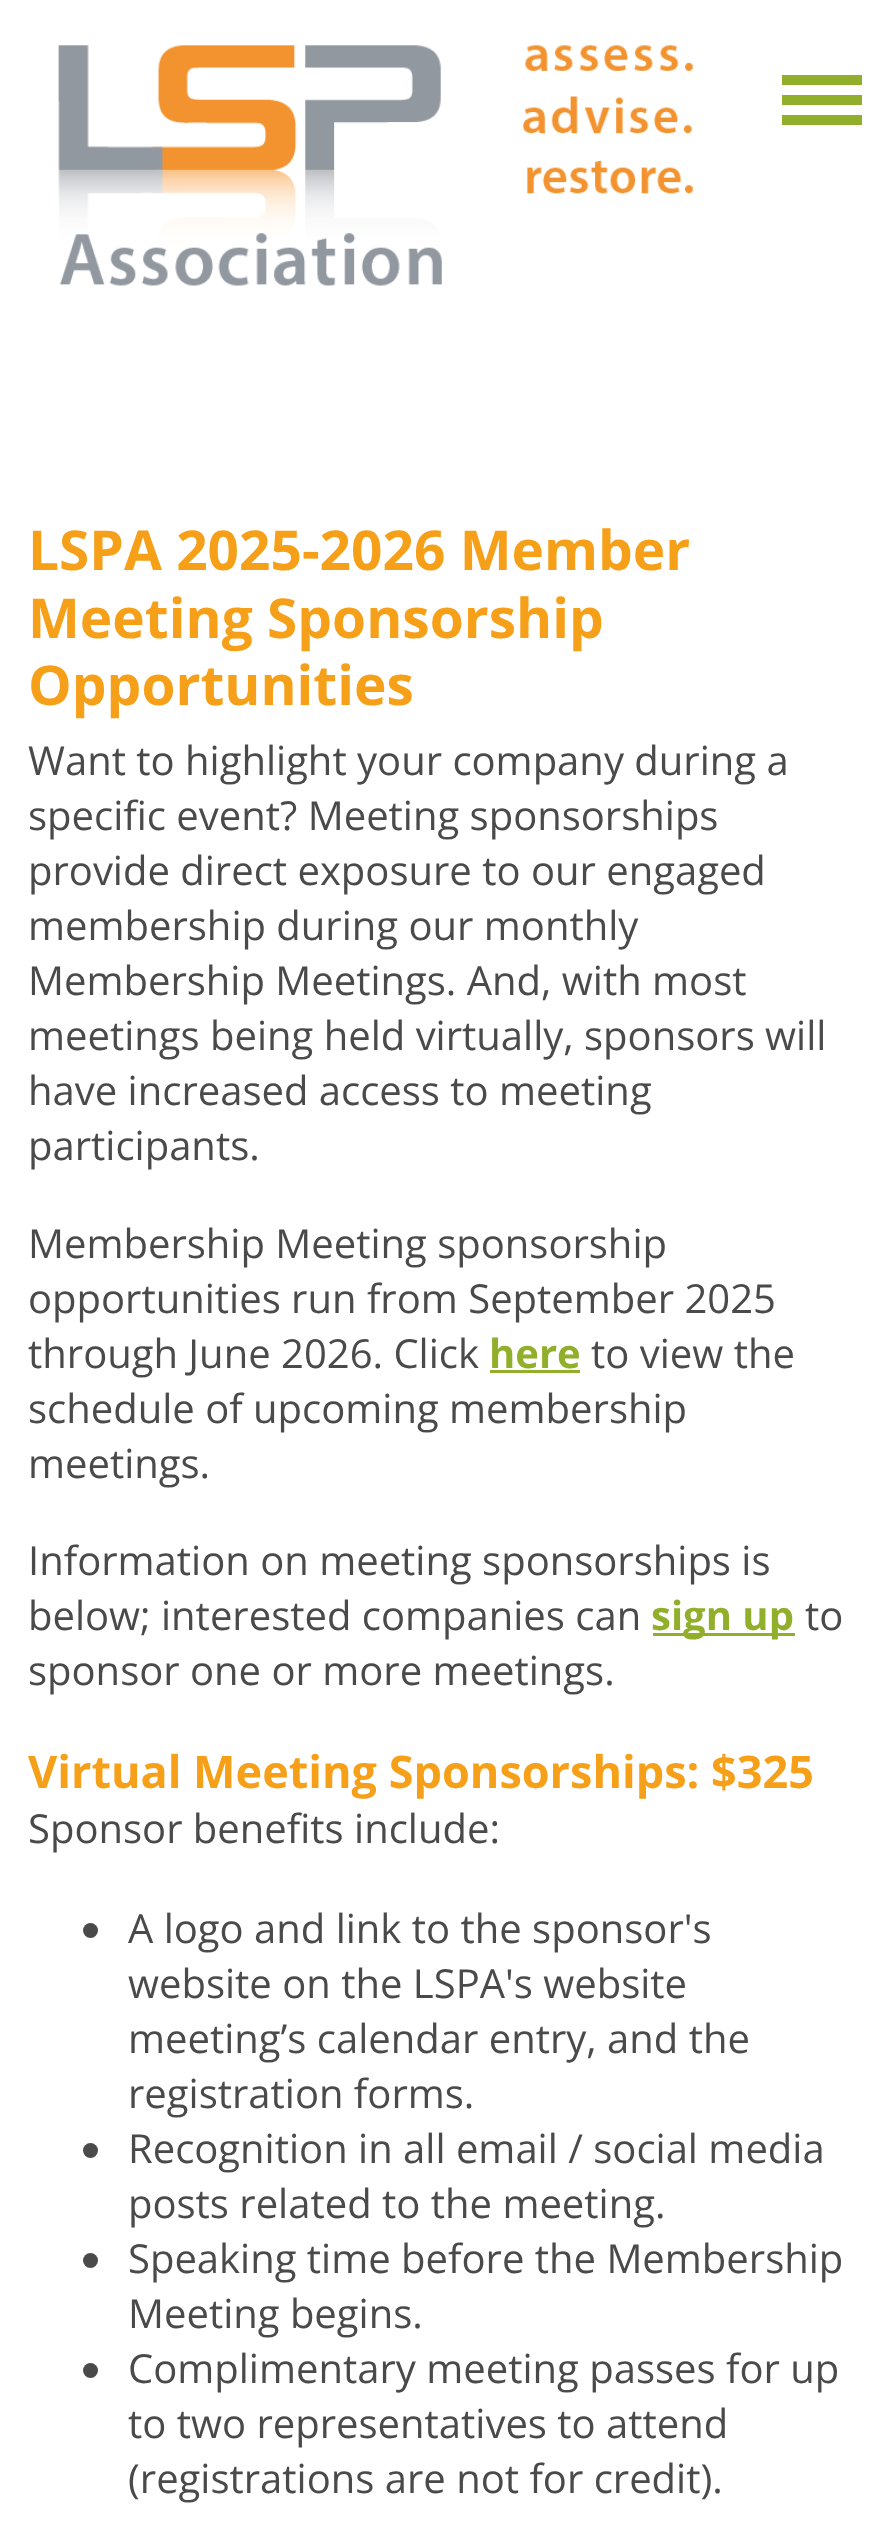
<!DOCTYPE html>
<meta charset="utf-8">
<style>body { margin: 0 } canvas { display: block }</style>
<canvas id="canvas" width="890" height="2544"></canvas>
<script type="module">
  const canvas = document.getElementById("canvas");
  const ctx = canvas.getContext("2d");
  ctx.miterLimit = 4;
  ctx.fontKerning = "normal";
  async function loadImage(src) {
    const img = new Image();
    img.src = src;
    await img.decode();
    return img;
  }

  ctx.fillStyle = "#ffffff";
  ctx.fillRect(0, 0, 890, 2544);
  ctx.drawImage(await loadImage("img1.png"), 58, 45, 635, 241);
  ctx.fillStyle = "#91af2b";
  ctx.beginPath();
  ctx.moveTo(782, 75);
  ctx.lineTo(862, 75);
  ctx.lineTo(862, 85);
  ctx.lineTo(782, 85);
  ctx.closePath();
  ctx.moveTo(782, 95);
  ctx.lineTo(862, 95);
  ctx.lineTo(862, 105);
  ctx.lineTo(782, 105);
  ctx.closePath();
  ctx.moveTo(782, 115);
  ctx.lineTo(862, 115);
  ctx.lineTo(862, 125);
  ctx.lineTo(782, 125);
  ctx.closePath();
  ctx.fill();
  ctx.font = "bold 55px Open Sans";
  ctx.fillStyle = "#f6a019";
  ctx.fillText("LSPA 2025-2026 Member", 28, 570);
  ctx.fillText("Meeting Sponsorship", 28, 638);
  ctx.fillText("Opportunities", 28, 705);
  ctx.font = "40px Open Sans";
  ctx.fillStyle = "#4a4a4a";
  ctx.fillText("Want to highlight your company during a", 28, 775);
  ctx.fillText("specific event? Meeting sponsorships", 28, 830);
  ctx.fillText("provide direct exposure to our engaged", 28, 885);
  ctx.fillText("membership during our monthly", 28, 940);
  ctx.fillText("Membership Meetings. And, with most", 28, 995);
  ctx.fillText("meetings being held virtually, sponsors will", 28, 1050);
  ctx.fillText("have increased access to meeting", 28, 1105);
  ctx.fillText("participants.", 28, 1160);
  ctx.fillText("Membership Meeting sponsorship", 28, 1258);
  ctx.fillText("opportunities run from September 2025", 28, 1313);
  ctx.fillText("through June 2026. Click", 28, 1368);
  ctx.font = "bold 40px Open Sans";
  ctx.fillStyle = "#91af2b";
  ctx.fillText("here", 489, 1368);
  ctx.fillRect(490, 1370, 90, 3);
  ctx.font = "40px Open Sans";
  ctx.fillStyle = "#4a4a4a";
  ctx.fillText("to view the", 591, 1368);
  ctx.fillText("schedule of upcoming membership", 28, 1423);
  ctx.fillText("meetings.", 28, 1478);
  ctx.fillText("Information on meeting sponsorships is", 28, 1575);
  ctx.fillText("below; interested companies can", 28, 1630);
  ctx.fillStyle = "#91af2b";
  ctx.fillRect(653, 1633, 142, 3);
  ctx.font = "bold 40px Open Sans";
  ctx.fillText("sign up", 651, 1630);
  ctx.font = "40px Open Sans";
  ctx.fillStyle = "#4a4a4a";
  ctx.fillText("to", 805, 1630);
  ctx.fillText("sponsor one or more meetings.", 28, 1685);
  ctx.font = "bold 45px Open Sans";
  ctx.fillStyle = "#f6a019";
  ctx.fillText("Virtual Meeting Sponsorships: $325", 28, 1788);
  ctx.font = "40px Open Sans";
  ctx.fillStyle = "#4a4a4a";
  ctx.fillText("Sponsor benefits include:", 28, 1843);
  ctx.beginPath();
  ctx.arc(90.5, 1930.5, 7.5, 0, Math.PI * 2);
  ctx.fill();
  ctx.fillText("A logo and link to the sponsor's", 128, 1943);
  ctx.fillText("website on the LSPA's website", 128, 1998);
  ctx.fillText("meeting’s calendar entry, and the", 128, 2053);
  ctx.fillText("registration forms.", 128, 2108);
  ctx.beginPath();
  ctx.arc(90.5, 2150.5, 7.5, 0, Math.PI * 2);
  ctx.fill();
  ctx.fillText("Recognition in all email / social media", 128, 2163);
  ctx.fillText("posts related to the meeting.", 128, 2218);
  ctx.beginPath();
  ctx.arc(90.5, 2260.5, 7.5, 0, Math.PI * 2);
  ctx.fill();
  ctx.fillText("Speaking time before the Membership", 128, 2273);
  ctx.fillText("Meeting begins.", 128, 2328);
  ctx.beginPath();
  ctx.arc(90.5, 2370.5, 7.5, 0, Math.PI * 2);
  ctx.fill();
  ctx.fillText("Complimentary meeting passes for up", 128, 2383);
  ctx.fillText("to two representatives to attend", 128, 2438);
  ctx.fillText("(registrations are not for credit).", 128, 2493);
</script>
